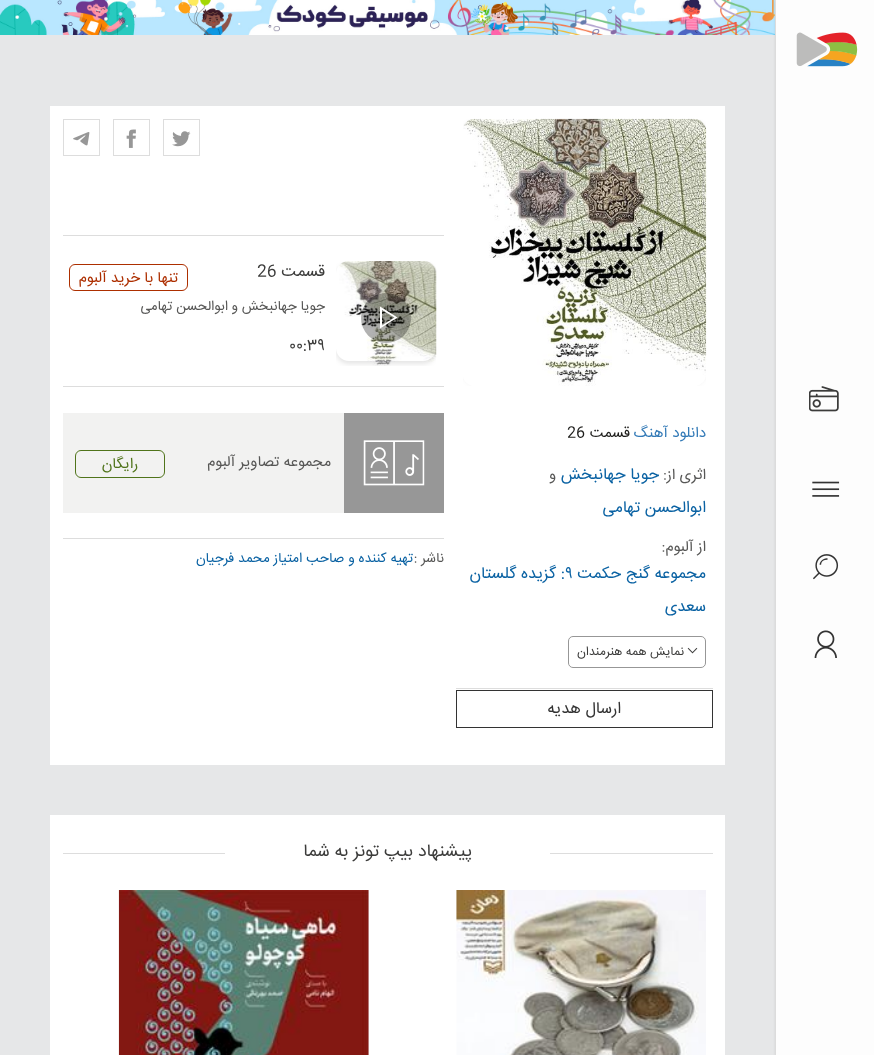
<!DOCTYPE html>
<meta charset="utf-8">
<style>body { margin: 0 } canvas { display: block }</style>
<canvas id="canvas" width="874" height="1055"></canvas>
<script type="module">
  const canvas = document.getElementById("canvas");
  const ctx = canvas.getContext("2d");
  ctx.miterLimit = 4;
  ctx.fontKerning = "normal";
  async function loadImage(src) {
    const img = new Image();
    img.src = src;
    await img.decode();
    return img;
  }

  ctx.fillStyle = "#e6e7e8";
  ctx.fillRect(0, 0, 874, 1055);
  ctx.drawImage(await loadImage("img1.png"), 0, 0, 775, 35);
  ctx.fillStyle = "rgba(0, 0, 0, 0.08)";
  ctx.filter = "blur(1px)";
  ctx.beginPath();
  ctx.rect(775, 1, 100, 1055);
  ctx.fill();
  ctx.filter = "none";
  ctx.fillStyle = "#fdfdfd";
  ctx.fillRect(776, 0, 98, 1055);
  ctx.fillStyle = "#dcdcdc";
  ctx.fillRect(775, 0, 1, 1055);
  ctx.drawImage(await loadImage("img2.png"), 796, 32, 62, 35);
  ctx.drawImage(await loadImage("img3.png"), 809, 386, 30, 26);
  ctx.drawImage(await loadImage("img4.png"), 812, 481, 28, 16);
  ctx.drawImage(await loadImage("img5.png"), 813, 554, 26, 26);
  ctx.drawImage(await loadImage("img6.png"), 814, 630, 23, 28);
  ctx.fillStyle = "#ffffff";
  ctx.fillRect(50, 106, 675, 659);
  ctx.save();
  ctx.beginPath();
  ctx.rect(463, 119, 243, 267);
  ctx.clip();
  ctx.fillStyle = "rgba(0, 0, 0, 0.1)";
  ctx.filter = "blur(2.5px)";
  ctx.beginPath();
  ctx.roundRect(463, 121, 243, 263, 13);
  ctx.fill();
  ctx.filter = "none";
  ctx.restore();
  ctx.drawImage(await loadImage("img7.png"), 463, 118, 244, 268);
  ctx.fillStyle = "#dddddd";
  ctx.fillRect(456, 688, 257, 1);
  ctx.direction = "rtl";
  ctx.font = "15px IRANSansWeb";
  ctx.fillStyle = "#337ab7";
  ctx.fillText("دانلود آهنگ", 706, 437);
  ctx.fillStyle = "#1d1d1b";
  ctx.fillText("قسمت", 630, 437);
  ctx.direction = "ltr";
  ctx.fillText("26", 567, 437);
  ctx.direction = "rtl";
  ctx.fillStyle = "#575756";
  ctx.fillText("اثری از:", 706, 479);
  ctx.font = "16.25px IRANSansWeb";
  ctx.fillStyle = "#0a62a3";
  ctx.fillText("جویا جهانبخش", 659, 479);
  ctx.font = "15px IRANSansWeb";
  ctx.fillStyle = "#575756";
  ctx.fillText("و", 556, 479);
  ctx.font = "16.25px IRANSansWeb";
  ctx.fillStyle = "#0a62a3";
  ctx.fillText("ابوالحسن تهامی", 706, 512);
  ctx.font = "15px IRANSansWeb";
  ctx.fillStyle = "#575756";
  ctx.fillText("از آلبوم:", 706, 551);
  ctx.font = "16.25px IRANSansWeb";
  ctx.fillStyle = "#0a62a3";
  ctx.fillText("مجموعه گنج حکمت", 706, 578);
  ctx.direction = "ltr";
  ctx.fillText("۹", 565, 578);
  ctx.direction = "rtl";
  ctx.fillText(": گزیده گلستان", 565, 578);
  ctx.fillText("سعدی", 706, 611);
  ctx.beginPath();
  ctx.roundRect(568.5, 636.5, 137, 31, 4.5);
  ctx.strokeStyle = "#979797";
  ctx.stroke();
  ctx.drawImage(await loadImage("img8.png"), 687, 647, 11, 7);
  ctx.font = "12.5px IRANSansWeb";
  ctx.fillStyle = "#3c3c3b";
  ctx.fillText("نمایش همه هنرمندان", 684, 655);
  ctx.strokeStyle = "#333333";
  ctx.strokeRect(456.5, 690.5, 256, 37);
  ctx.font = "16.25px IRANSansWeb";
  ctx.fillStyle = "#333333";
  ctx.fillText("ارسال هدیه", 621, 713);
  ctx.fillStyle = "#dddddd";
  ctx.fillRect(63, 235, 381, 1);
  ctx.strokeStyle = "#dddddd";
  ctx.strokeRect(163.5, 119.5, 36, 36);
  ctx.drawImage(await loadImage("img9.png"), 172, 131, 19, 16);
  ctx.strokeRect(113.5, 119.5, 36, 36);
  ctx.drawImage(await loadImage("img10.png"), 126, 129, 10, 19);
  ctx.strokeRect(63.5, 119.5, 36, 36);
  ctx.drawImage(await loadImage("img11.png"), 73, 132, 17, 14);
  ctx.fillRect(63, 386, 381, 1);
  ctx.drawImage(await loadImage("img12.png"), 339, 261, 98, 105);
  ctx.save();
  ctx.beginPath();
  ctx.rect(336, 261, 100, 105);
  ctx.clip();
  ctx.beginPath();
  ctx.moveTo(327, 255);
  ctx.lineTo(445, 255);
  ctx.lineTo(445, 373);
  ctx.lineTo(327, 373);
  ctx.closePath();
  ctx.moveTo(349, 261);
  ctx.lineTo(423, 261);
  ctx.bezierCurveTo(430, 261, 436, 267, 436, 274);
  ctx.lineTo(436, 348);
  ctx.bezierCurveTo(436, 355, 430, 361, 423, 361);
  ctx.lineTo(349, 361);
  ctx.bezierCurveTo(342, 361, 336, 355, 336, 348);
  ctx.lineTo(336, 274);
  ctx.bezierCurveTo(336, 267, 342, 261, 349, 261);
  ctx.closePath();
  ctx.clip("evenodd");
  ctx.fillStyle = "rgba(0, 0, 0, 0.1)";
  ctx.filter = "blur(2.5px)";
  ctx.beginPath();
  ctx.roundRect(336, 264, 100, 100, 13);
  ctx.fill();
  ctx.filter = "none";
  ctx.restore();
  ctx.fillStyle = "rgba(0, 0, 0, 0.3)";
  ctx.beginPath();
  ctx.arc(386, 318, 25, 0, Math.PI * 2);
  ctx.fill();
  ctx.fillStyle = "#ffffff";
  ctx.beginPath();
  ctx.moveTo(380, 328.5);
  ctx.lineTo(380, 306.5);
  ctx.lineTo(397.5, 317.5);
  ctx.closePath();
  ctx.moveTo(382, 310);
  ctx.lineTo(382, 325.5);
  ctx.lineTo(394.5, 317.5);
  ctx.closePath();
  ctx.fill();
  ctx.fillStyle = "#3c3c3b";
  ctx.fillText("قسمت", 325, 276);
  ctx.direction = "ltr";
  ctx.fillText("26", 257, 276);
  ctx.save();
  ctx.beginPath();
  ctx.rect(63, 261, 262, 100);
  ctx.clip();
  ctx.beginPath();
  ctx.moveTo(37, 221);
  ctx.lineTo(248, 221);
  ctx.lineTo(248, 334);
  ctx.lineTo(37, 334);
  ctx.closePath();
  ctx.moveTo(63, 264);
  ctx.lineTo(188, 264);
  ctx.lineTo(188, 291);
  ctx.lineTo(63, 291);
  ctx.closePath();
  ctx.clip("evenodd");
  ctx.fillStyle = "#ffffff";
  ctx.filter = "blur(12.5px)";
  ctx.beginPath();
  ctx.rect(76, 260, 133, 35);
  ctx.fill();
  ctx.filter = "none";
  ctx.restore();
  ctx.beginPath();
  ctx.roundRect(69.5, 264.5, 118, 26, 5.5);
  ctx.strokeStyle = "#ad2f00";
  ctx.stroke();
  ctx.direction = "rtl";
  ctx.font = "15px IRANSansWeb";
  ctx.fillStyle = "#ad2f00";
  ctx.fillText("تنها با خرید آلبوم", 178, 282);
  ctx.font = "13.75px IRANSansWeb";
  ctx.fillStyle = "#575756";
  ctx.fillText("جویا جهانبخش", 325, 310);
  ctx.fillText("و", 238, 310);
  ctx.fillText("ابوالحسن تهامی", 228, 310);
  ctx.direction = "ltr";
  ctx.font = "16.25px IRANSansWeb";
  ctx.fillStyle = "#3c3c3b";
  ctx.fillText("۰۰:۳۹", 289, 350);
  ctx.fillStyle = "#dddddd";
  ctx.fillRect(63, 538, 381, 1);
  ctx.fillStyle = "#f2f2f1";
  ctx.fillRect(63, 413, 281, 100);
  ctx.fillStyle = "#979797";
  ctx.fillRect(344, 413, 100, 100);
  ctx.drawImage(await loadImage("img13.png"), 363, 440, 62, 46);
  ctx.direction = "rtl";
  ctx.font = "15px IRANSansWeb";
  ctx.fillStyle = "#575756";
  ctx.fillText("مجموعه تصاویر آلبوم", 331, 466);
  ctx.beginPath();
  ctx.roundRect(75.5, 450.5, 89, 27, 5.5);
  ctx.strokeStyle = "#50741b";
  ctx.stroke();
  ctx.fillStyle = "#50741b";
  ctx.fillText("رایگان", 138, 468);
  ctx.font = "13.75px IRANSansWeb";
  ctx.fillStyle = "#575756";
  ctx.fillText("ناشر :", 444, 562);
  ctx.fillStyle = "#0a62a3";
  ctx.fillText("تهيه كننده و صاحب امتياز محمد فرجيان", 413, 562);
  ctx.fillStyle = "#ffffff";
  ctx.fillRect(50, 815, 675, 240);
  ctx.fillStyle = "#dddddd";
  ctx.fillRect(63, 853, 650, 1);
  ctx.fillStyle = "#ffffff";
  ctx.fillRect(225, 853, 325, 1);
  ctx.font = "17.5px IRANSansWeb";
  ctx.fillStyle = "#3c3c3b";
  ctx.fillText("پیشنهاد بیپ تونز به شما", 472, 856);
  ctx.drawImage(await loadImage("img14.png"), 456, 890, 250, 165);
  ctx.drawImage(await loadImage("img15.png"), 118, 890, 251, 165);
</script>
